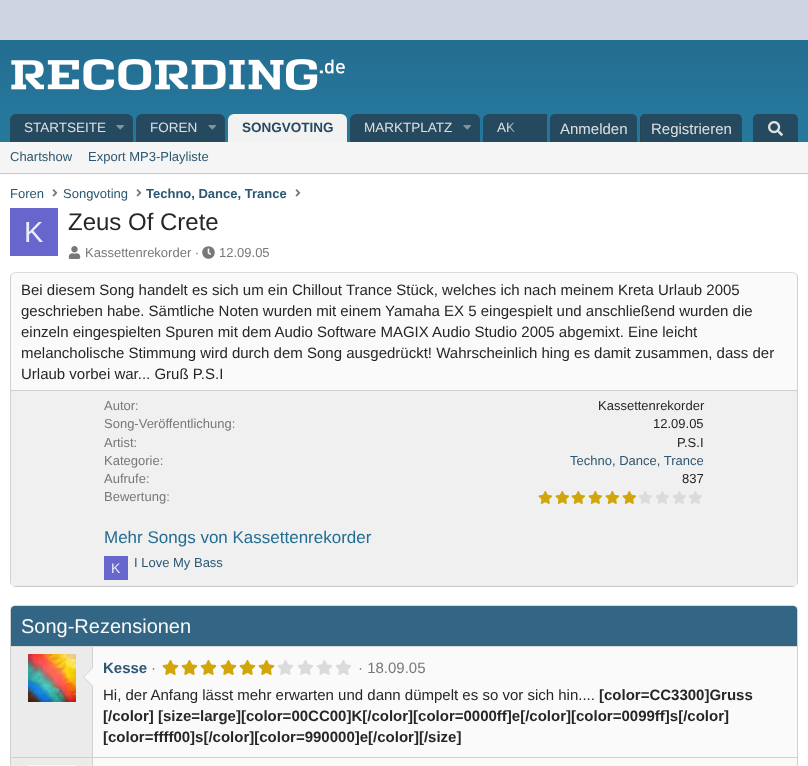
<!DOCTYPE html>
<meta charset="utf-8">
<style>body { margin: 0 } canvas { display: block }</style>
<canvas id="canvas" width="808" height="766"></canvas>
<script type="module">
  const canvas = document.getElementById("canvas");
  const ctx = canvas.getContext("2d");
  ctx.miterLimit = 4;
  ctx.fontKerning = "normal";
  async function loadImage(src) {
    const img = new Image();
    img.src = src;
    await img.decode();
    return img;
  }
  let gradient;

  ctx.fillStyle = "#cfd4e3";
  ctx.fillRect(0, 0, 808, 766);
  gradient = ctx.createLinearGradient(404, 40, 404, 114);
  gradient.addColorStop(0, "#236d90");
  gradient.addColorStop(1, "#26779c");
  ctx.fillStyle = gradient;
  ctx.fillRect(0, 40, 808, 74);
  ctx.drawImage(await loadImage("img1.png"), 11, 59, 334, 32);
  ctx.fillStyle = "#26779c";
  ctx.fillRect(0, 114, 808, 28);
  ctx.fillStyle = "#25495f";
  ctx.beginPath();
  ctx.roundRect(10, 114, 123, 28, [6, 6, 0, 0]);
  ctx.fill();
  ctx.font = "13.5px Liberation Sans";
  ctx.fillStyle = "#e0e0e0";
  ctx.fillText("STARTSEITE", 24, 132);
  ctx.drawImage(await loadImage("img2.png"), 116, 125, 9, 5);
  ctx.fillStyle = "#25495f";
  ctx.beginPath();
  ctx.roundRect(136, 114, 89, 28, [6, 6, 0, 0]);
  ctx.fill();
  ctx.fillStyle = "#e0e0e0";
  ctx.fillText("FOREN", 150, 132);
  ctx.drawImage(await loadImage("img3.png"), 208, 125, 8, 5);
  ctx.fillStyle = "#f2f2f2";
  ctx.beginPath();
  ctx.roundRect(228, 114, 119, 28, [6, 6, 0, 0]);
  ctx.fill();
  ctx.font = "bold 13.5px Liberation Sans";
  ctx.fillStyle = "#25495f";
  ctx.fillText("SONGVOTING", 242, 132);
  ctx.beginPath();
  ctx.roundRect(350, 114, 130, 28, [6, 6, 0, 0]);
  ctx.fill();
  ctx.font = "13.5px Liberation Sans";
  ctx.fillStyle = "#e0e0e0";
  ctx.fillText("MARKTPLATZ", 364, 132);
  ctx.drawImage(await loadImage("img3.png"), 463, 125, 8, 5);
  ctx.fillStyle = "#25495f";
  ctx.beginPath();
  ctx.roundRect(483, 114, 64, 28, [6, 0, 0, 0]);
  ctx.fill();
  ctx.fillStyle = "#e0e0e0";
  ctx.fillText("AK", 497, 132);
  gradient = ctx.createLinearGradient(507, 128, 547, 128);
  gradient.addColorStop(0, "rgba(37, 73, 95, 0)");
  gradient.addColorStop(0.33, "#25495f");
  ctx.fillStyle = gradient;
  ctx.fillRect(507, 122, 8, 10);
  ctx.fillStyle = "#25495f";
  ctx.beginPath();
  ctx.roundRect(550, 114, 87, 28, [5, 5, 0, 0]);
  ctx.fill();
  ctx.font = "15px Liberation Sans";
  ctx.fillStyle = "#e0e0e0";
  ctx.fillText("Anmelden", 560, 134);
  ctx.fillStyle = "#25495f";
  ctx.beginPath();
  ctx.roundRect(640, 114, 102, 28, [5, 5, 0, 0]);
  ctx.fill();
  ctx.fillStyle = "rgba(38, 38, 38, 0.15)";
  ctx.fillRect(640, 117, 1, 25);
  ctx.fillStyle = "#e0e0e0";
  ctx.fillText("Registrieren", 651, 134);
  ctx.fillStyle = "#25495f";
  ctx.beginPath();
  ctx.roundRect(753, 114, 45, 28, [5, 5, 0, 0]);
  ctx.fill();
  ctx.drawImage(await loadImage("img4.png"), 768, 121, 15, 15);
  ctx.fillStyle = "#f5f5f5";
  ctx.fillRect(0, 142, 808, 31);
  ctx.fillStyle = "#c7c7c7";
  ctx.fillRect(0, 173, 808, 1);
  ctx.font = "13px Liberation Sans";
  ctx.fillStyle = "#2c5772";
  ctx.fillText("Chartshow", 10, 161);
  ctx.fillText("Export MP3-Playliste", 88, 161);
  ctx.fillStyle = "#ffffff";
  ctx.fillRect(0, 174, 808, 592);
  ctx.fillStyle = "#2c5772";
  ctx.fillText("Foren", 10, 198);
  ctx.drawImage(await loadImage("img5.png"), 52, 189, 6, 8);
  ctx.fillText("Songvoting", 63, 198);
  ctx.drawImage(await loadImage("img5.png"), 136, 189, 6, 8);
  ctx.font = "bold 13px Liberation Sans";
  ctx.fillText("Techno, Dance, Trance", 146, 198);
  ctx.drawImage(await loadImage("img5.png"), 295, 189, 6, 8);
  ctx.fillStyle = "#6666cc";
  ctx.fillRect(10, 208, 48, 48);
  ctx.font = "29px Liberation Sans";
  ctx.fillStyle = "#ececf9";
  ctx.fillText("K", 24, 242);
  ctx.font = "24px Liberation Sans";
  ctx.fillStyle = "#262626";
  ctx.fillText("Zeus Of Crete", 68, 230);
  ctx.drawImage(await loadImage("img6.png"), 68, 246, 13, 13);
  ctx.font = "13px Liberation Sans";
  ctx.fillStyle = "#787878";
  ctx.fillText("Kassettenrekorder ·", 85, 257);
  ctx.drawImage(await loadImage("img7.png"), 202, 246, 13, 13);
  ctx.fillText("12.09.05", 219, 257);
  ctx.fillStyle = "#fafafa";
  ctx.beginPath();
  ctx.roundRect(10, 272, 788, 315, 5);
  ctx.fill();
  ctx.beginPath();
  ctx.moveTo(12, 274);
  ctx.lineTo(15, 272.5);
  ctx.lineTo(793, 272.5);
  ctx.lineTo(796, 274);
  ctx.strokeStyle = "#dbdbdb";
  ctx.stroke();
  ctx.beginPath();
  ctx.moveTo(796, 274);
  ctx.bezierCurveTo(797, 274.5, 797.5, 276, 797.5, 277);
  ctx.lineTo(797.5, 582);
  ctx.bezierCurveTo(797.5, 583, 797, 584.5, 796, 585);
  ctx.strokeStyle = "#d1d1d1";
  ctx.stroke();
  ctx.beginPath();
  ctx.moveTo(796, 585);
  ctx.lineTo(793, 586.5);
  ctx.lineTo(15, 586.5);
  ctx.lineTo(12, 585);
  ctx.strokeStyle = "#c7c7c7";
  ctx.stroke();
  ctx.beginPath();
  ctx.moveTo(12, 585);
  ctx.bezierCurveTo(11, 584.5, 10.5, 583, 10.5, 582);
  ctx.lineTo(10.5, 277);
  ctx.bezierCurveTo(10.5, 276, 11, 274.5, 12, 274);
  ctx.strokeStyle = "#d1d1d1";
  ctx.stroke();
  ctx.font = "15px Liberation Sans";
  ctx.fillStyle = "#262626";
  ctx.fillText("Bei diesem Song handelt es sich um ein Chillout Trance Stück, welches ich nach meinem Kreta Urlaub 2005", 21, 295);
  ctx.fillText("geschrieben habe. Sämtliche Noten wurden mit einem Yamaha EX 5 eingespielt und anschließend wurden die", 21, 316);
  ctx.fillText("einzeln eingespielten Spuren mit dem Audio Software MAGIX Audio Studio 2005 abgemixt. Eine leicht", 21, 337);
  ctx.fillText("melancholische Stimmung wird durch dem Song ausgedrückt! Wahrscheinlich hing es damit zusammen, dass der", 21, 358);
  ctx.fillText("Urlaub vorbei war... Gruß P.S.I", 21, 379);
  ctx.fillStyle = "#f0f0f0";
  ctx.fillRect(11, 391, 786, 195);
  ctx.fillStyle = "#d1d1d1";
  ctx.fillRect(11, 390, 786, 1);
  ctx.font = "13px Liberation Sans";
  ctx.fillStyle = "#787878";
  ctx.fillText("Autor:", 104, 410);
  ctx.fillStyle = "#262626";
  ctx.fillText("Kassettenrekorder", 598, 410);
  ctx.fillStyle = "#787878";
  ctx.fillText("Song-Veröffentlichung:", 104, 428);
  ctx.fillStyle = "#262626";
  ctx.fillText("12.09.05", 653, 428);
  ctx.fillStyle = "#787878";
  ctx.fillText("Artist:", 104, 447);
  ctx.fillStyle = "#262626";
  ctx.fillText("P.S.I", 677, 447);
  ctx.fillStyle = "#787878";
  ctx.fillText("Kategorie:", 104, 465);
  ctx.fillStyle = "#2c5772";
  ctx.fillText("Techno, Dance, Trance", 570, 465);
  ctx.fillStyle = "#787878";
  ctx.fillText("Aufrufe:", 104, 483);
  ctx.fillStyle = "#262626";
  ctx.fillText("837", 682, 483);
  ctx.fillStyle = "#787878";
  ctx.fillText("Bewertung:", 104, 501);
  ctx.drawImage(await loadImage("img8.png"), 538, 491, 15, 13);
  ctx.drawImage(await loadImage("img9.png"), 555, 491, 14, 13);
  ctx.drawImage(await loadImage("img8.png"), 571, 491, 15, 13);
  ctx.drawImage(await loadImage("img8.png"), 588, 491, 15, 13);
  ctx.drawImage(await loadImage("img9.png"), 605, 491, 14, 13);
  ctx.drawImage(await loadImage("img9.png"), 622, 491, 14, 13);
  ctx.drawImage(await loadImage("img10.png"), 638, 491, 14, 13);
  ctx.drawImage(await loadImage("img10.png"), 655, 491, 14, 13);
  ctx.drawImage(await loadImage("img10.png"), 672, 491, 14, 13);
  ctx.drawImage(await loadImage("img10.png"), 688, 491, 14, 13);
  ctx.font = "17px Liberation Sans";
  ctx.fillStyle = "#236d90";
  ctx.fillText("Mehr Songs von Kassettenrekorder", 104, 543);
  ctx.fillStyle = "#6666cc";
  ctx.fillRect(104, 556, 24, 24);
  ctx.font = "14px Liberation Sans";
  ctx.fillStyle = "#ececf9";
  ctx.fillText("K", 111, 573);
  ctx.font = "13px Liberation Sans";
  ctx.fillStyle = "#2c5772";
  ctx.fillText("I Love My Bass", 134, 567);
  ctx.fillStyle = "#fafafa";
  ctx.beginPath();
  ctx.roundRect(10, 605, 788, 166, 5);
  ctx.fill();
  ctx.beginPath();
  ctx.moveTo(12, 607);
  ctx.lineTo(15, 605.5);
  ctx.lineTo(793, 605.5);
  ctx.lineTo(796, 607);
  ctx.strokeStyle = "#dbdbdb";
  ctx.stroke();
  ctx.beginPath();
  ctx.moveTo(796, 607);
  ctx.lineTo(797.5, 610);
  ctx.lineTo(797.5, 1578);
  ctx.lineTo(796, 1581);
  ctx.strokeStyle = "#d1d1d1";
  ctx.stroke();
  ctx.beginPath();
  ctx.moveTo(12, 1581);
  ctx.lineTo(10.5, 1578);
  ctx.lineTo(10.5, 610);
  ctx.lineTo(12, 607);
  ctx.stroke();
  ctx.fillStyle = "#336584";
  ctx.beginPath();
  ctx.roundRect(11, 606, 786, 41, [4, 4, 0, 0]);
  ctx.fill();
  ctx.fillStyle = "#dbdbdb";
  ctx.fillRect(11, 646, 786, 1);
  ctx.font = "20px Liberation Sans";
  ctx.fillStyle = "#fafafa";
  ctx.fillText("Song-Rezensionen", 21, 633);
  ctx.fillStyle = "#ebebeb";
  ctx.fillRect(11, 647, 81, 110);
  ctx.fillStyle = "#d1d1d1";
  ctx.fillRect(92, 647, 1, 110);
  ctx.drawImage(await loadImage("img11.png"), 28, 654, 48, 48);
  ctx.beginPath();
  ctx.moveTo(93, 667);
  ctx.lineTo(93, 687);
  ctx.lineTo(83, 677);
  ctx.closePath();
  ctx.fill();
  ctx.fillStyle = "#fafafa";
  ctx.beginPath();
  ctx.moveTo(93, 668);
  ctx.lineTo(93, 686);
  ctx.lineTo(84, 677);
  ctx.closePath();
  ctx.fill();
  ctx.font = "bold 15px Liberation Sans";
  ctx.fillStyle = "#2c5772";
  ctx.fillText("Kesse", 103, 673);
  ctx.font = "15px Liberation Sans";
  ctx.fillStyle = "#787878";
  ctx.fillText("·", 151, 673);
  ctx.drawImage(await loadImage("img12.png"), 162, 660, 17, 15);
  ctx.drawImage(await loadImage("img12.png"), 181, 660, 17, 15);
  ctx.drawImage(await loadImage("img12.png"), 200, 660, 17, 15);
  ctx.drawImage(await loadImage("img13.png"), 220, 660, 16, 15);
  ctx.drawImage(await loadImage("img12.png"), 239, 660, 17, 15);
  ctx.drawImage(await loadImage("img12.png"), 258, 660, 17, 15);
  ctx.drawImage(await loadImage("img14.png"), 277, 660, 16, 15);
  ctx.drawImage(await loadImage("img14.png"), 297, 660, 16, 15);
  ctx.drawImage(await loadImage("img14.png"), 316, 660, 16, 15);
  ctx.drawImage(await loadImage("img14.png"), 335, 660, 16, 15);
  ctx.fillText("· 18.09.05", 358, 673);
  ctx.fillStyle = "#262626";
  ctx.fillText("Hi, der Anfang lässt mehr erwarten und dann dümpelt es so vor sich hin....", 103, 700);
  ctx.font = "bold 15px Liberation Sans";
  ctx.fillText("[color=CC3300]Gruss", 599, 700);
  ctx.fillText("[/color] [size=large][color=00CC00]K[/color][color=0000ff]e[/color][color=0099ff]s[/color]", 103, 721);
  ctx.fillText("[color=ffff00]s[/color][color=990000]e[/color][/size]", 103, 742);
  ctx.fillStyle = "#d1d1d1";
  ctx.fillRect(11, 757, 786, 1);
  ctx.fillStyle = "#ebebeb";
  ctx.fillRect(11, 758, 82, 8);
  ctx.fillStyle = "#d1d1d1";
  ctx.fillRect(92, 758, 1, 8);
  ctx.fillStyle = "#fafafa";
  ctx.fillRect(28, 765, 48, 1);
</script>
